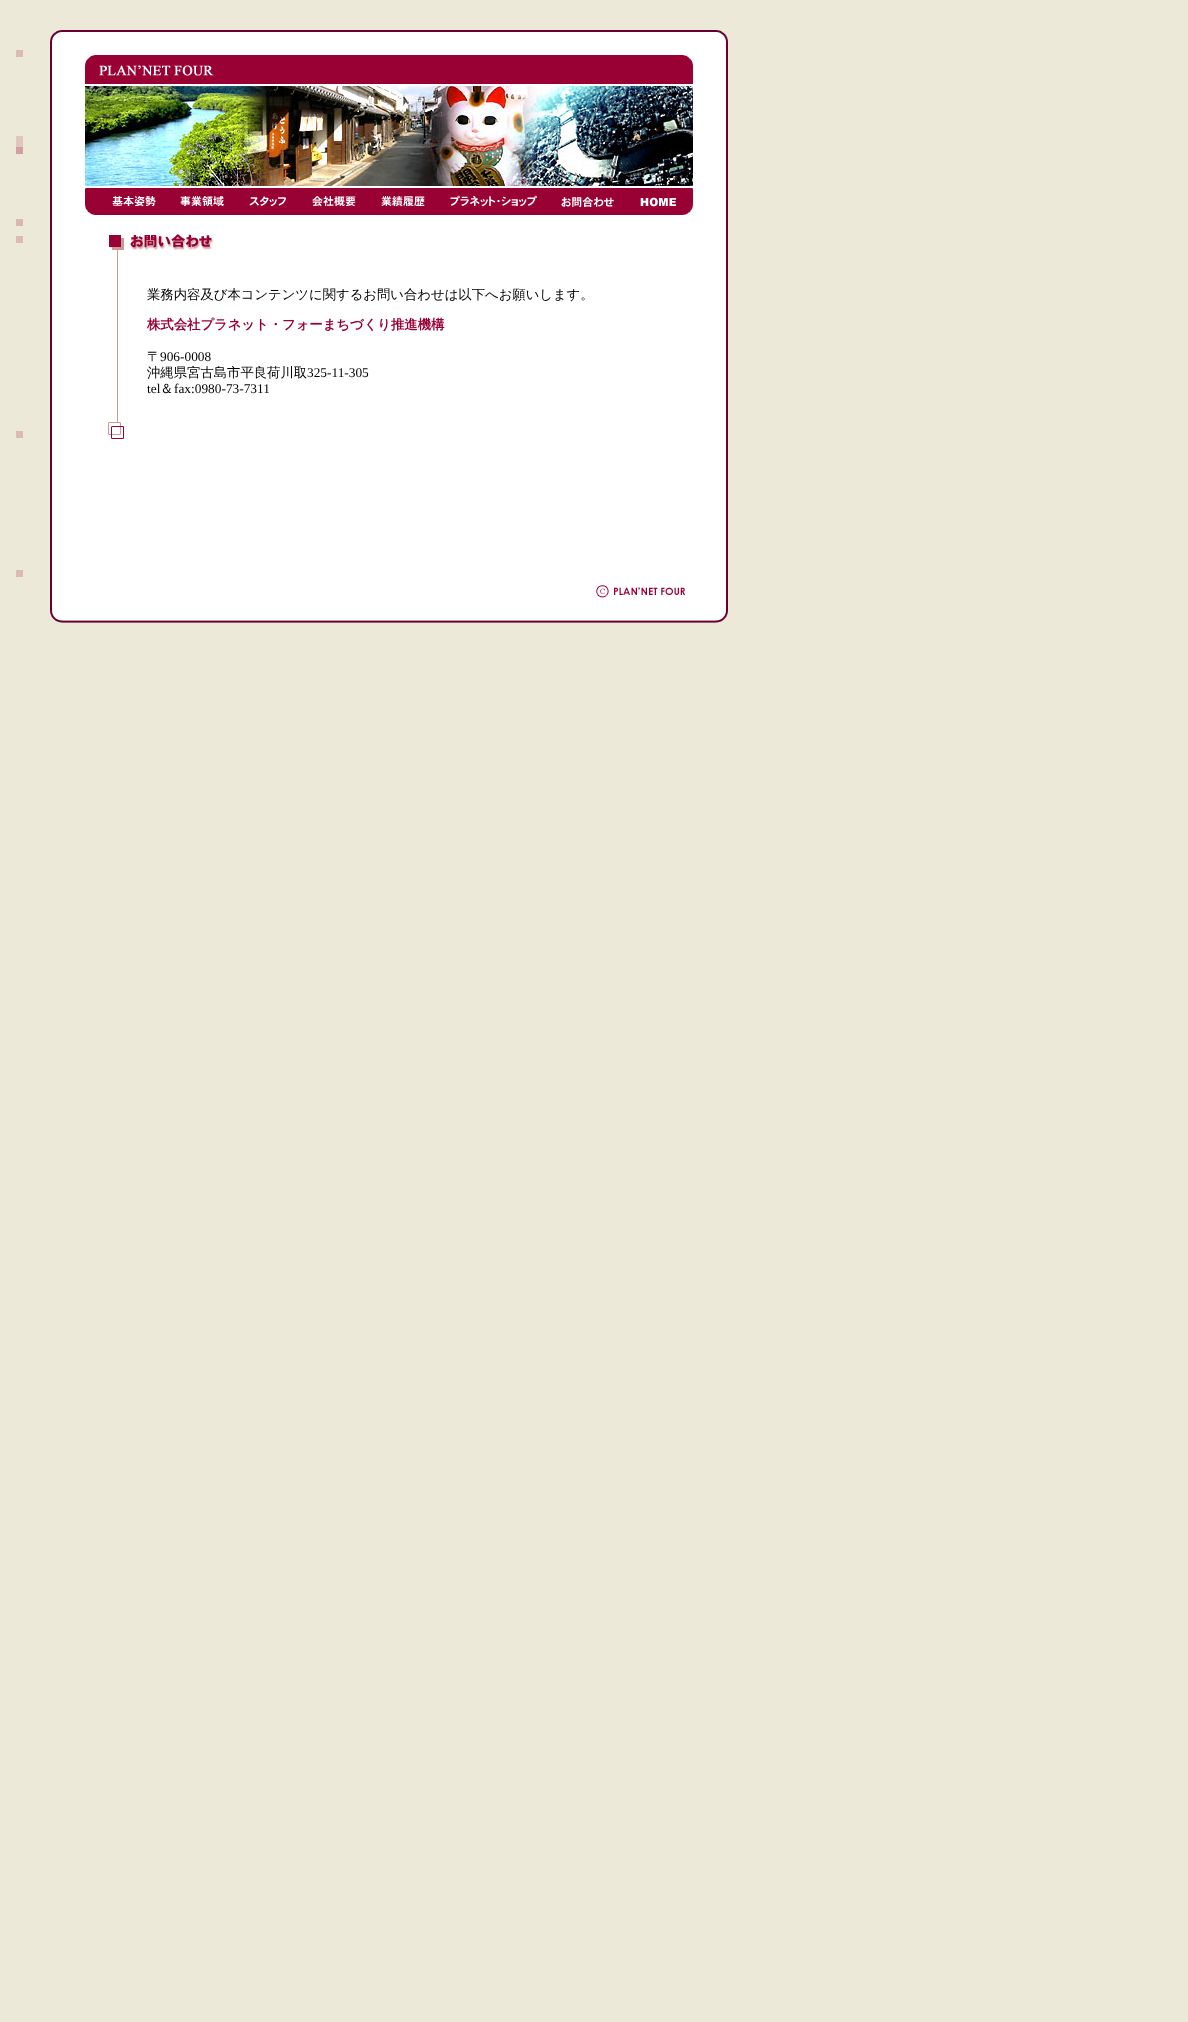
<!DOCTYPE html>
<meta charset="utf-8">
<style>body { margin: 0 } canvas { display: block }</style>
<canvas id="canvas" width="1188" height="2022"></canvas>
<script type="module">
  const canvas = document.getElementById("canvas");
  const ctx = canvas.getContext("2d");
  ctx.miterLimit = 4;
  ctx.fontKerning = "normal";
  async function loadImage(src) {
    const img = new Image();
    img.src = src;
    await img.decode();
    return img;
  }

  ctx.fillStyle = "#ece9d8";
  ctx.fillRect(0, 0, 1188, 2022);
  ctx.drawImage(await loadImage("img1.png"), 16, 50, 7, 527);
  ctx.drawImage(await loadImage("img2.png"), 50, 30, 678, 54);
  ctx.drawImage(await loadImage("img3.png"), 50, 84, 678, 473);
  ctx.drawImage(await loadImage("img4.png"), 85, 86, 608, 100);
  ctx.drawImage(await loadImage("img5.png"), 85, 188, 608, 27);
  ctx.drawImage(await loadImage("img6.png"), 109, 235, 15, 39);
  ctx.drawImage(await loadImage("img7.png"), 130, 234, 84, 17);
  ctx.fillStyle = "#cc9999";
  ctx.fillRect(117, 274, 1, 136);
  ctx.font = "500 13.35px WenQuanYi Zen Hei";
  ctx.fillStyle = "#000000";
  ctx.fillText("業務内容及び本コンテンツに関するお問い合わせは以下へお願いします。", 147, 299);
  ctx.font = "bold 13.35px WenQuanYi Zen Hei";
  ctx.fillStyle = "#990033";
  ctx.fillText("株式会社プラネット・フォーまちづくり推進機構", 147, 329);
  ctx.font = "500 13.35px WenQuanYi Zen Hei";
  ctx.fillStyle = "#000000";
  ctx.fillText("〒", 147, 361);
  ctx.font = "13.35px Liberation Serif";
  ctx.fillText("906-0008", 160, 361);
  ctx.font = "500 13.35px WenQuanYi Zen Hei";
  ctx.fillText("沖縄県宮古島市平良荷川取", 147, 377);
  ctx.font = "13.35px Liberation Serif";
  ctx.fillText("325-11-305", 307, 377);
  ctx.fillText("tel", 147, 393);
  ctx.font = "500 13.35px WenQuanYi Zen Hei";
  ctx.fillText("＆", 160, 393);
  ctx.font = "13.35px Liberation Serif";
  ctx.fillText("fax:0980-73-7311", 174, 393);
  ctx.drawImage(await loadImage("img8.png"), 108, 410, 16, 29);
  ctx.drawImage(await loadImage("img9.png"), 50, 557, 678, 66);
</script>
